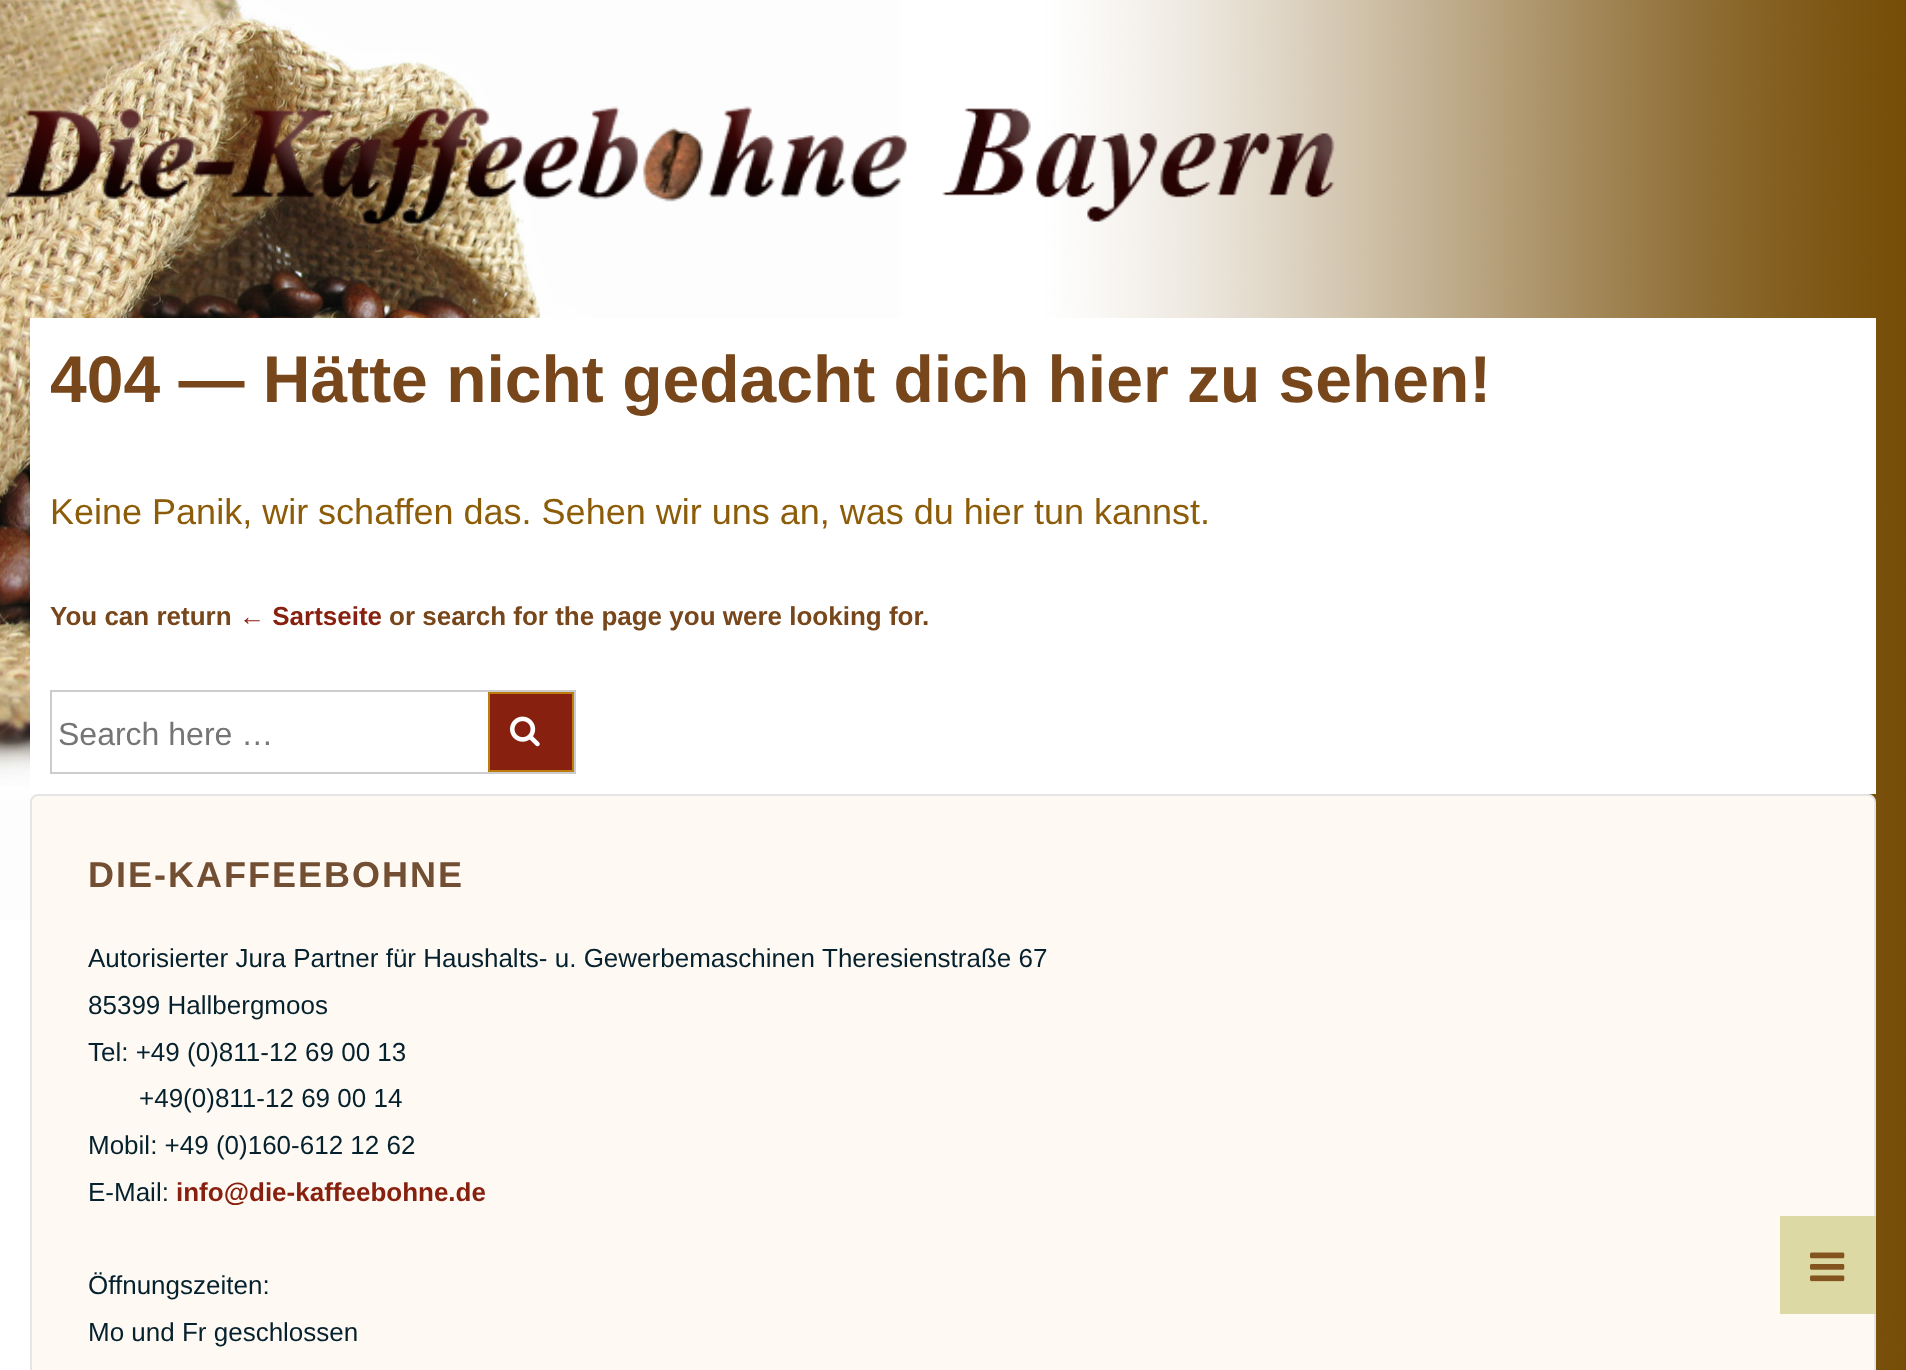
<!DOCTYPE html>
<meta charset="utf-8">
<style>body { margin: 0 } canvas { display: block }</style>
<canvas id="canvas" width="1906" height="1370"></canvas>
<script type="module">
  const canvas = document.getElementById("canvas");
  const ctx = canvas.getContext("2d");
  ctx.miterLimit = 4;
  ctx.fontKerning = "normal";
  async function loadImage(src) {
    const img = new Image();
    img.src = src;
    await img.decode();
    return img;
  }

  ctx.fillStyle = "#ffffff";
  ctx.fillRect(0, 0, 1906, 1370);
  ctx.drawImage(await loadImage("img1.png"), 0, 0, 1906, 1370);
  ctx.drawImage(await loadImage("img2.png"), 5, 106, 1330, 120);
  ctx.fillRect(30, 318, 1846, 476);
  ctx.font = "bold 66px Liberation Sans";
  ctx.fillStyle = "#77461b";
  ctx.fillText("404 — Hätte nicht gedacht dich hier zu sehen!", 50, 402);
  ctx.font = "36px Liberation Sans";
  ctx.fillStyle = "#8c5c09";
  ctx.fillText("Keine Panik, wir schaffen das. Sehen wir uns an, was du hier tun kannst.", 50, 524);
  ctx.font = "bold 26px Liberation Sans";
  ctx.fillStyle = "#77461b";
  ctx.fillText("You can return", 50, 625);
  ctx.fillStyle = "#87200e";
  ctx.fillText("← Sartseite", 239, 625);
  ctx.fillStyle = "#77461b";
  ctx.fillText("or search for the page you were looking for.", 389, 625);
  ctx.strokeStyle = "#cccccc";
  ctx.lineWidth = 2;
  ctx.strokeRect(51, 691, 524, 82);
  ctx.font = "32px Liberation Sans";
  ctx.fillStyle = "#757575";
  ctx.fillText("Search here …", 58, 745);
  ctx.fillStyle = "#87200e";
  ctx.beginPath();
  ctx.rect(489, 693, 84, 78);
  ctx.fill();
  ctx.strokeStyle = "#bc7e12";
  ctx.stroke();
  ctx.drawImage(await loadImage("img3.png"), 510, 716, 30, 31);
  ctx.fillStyle = "#fff9f3";
  ctx.beginPath();
  ctx.roundRect(31, 795, 1844, 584, 7);
  ctx.fill();
  ctx.strokeStyle = "#e5e5e5";
  ctx.stroke();
  ctx.letterSpacing = "2px";
  ctx.font = "bold 36px Liberation Sans";
  ctx.fillStyle = "#724e33";
  ctx.fillText("DIE-KAFFEEBOHNE", 88, 887);
  ctx.letterSpacing = "0px";
  ctx.font = "26px Liberation Sans";
  ctx.fillStyle = "#05212d";
  ctx.fillText("Autorisierter Jura Partner für Haushalts- u. Gewerbemaschinen", 88, 967);
  ctx.fillText("Theresienstraße 67", 822, 967);
  ctx.fillText("85399 Hallbergmoos", 88, 1014);
  ctx.fillText("Tel: +49 (0)811-12 69 00 13", 88, 1061);
  ctx.fillText("+49(0)811-12 69 00 14", 139, 1107);
  ctx.fillText("Mobil: +49 (0)160-612 12 62", 88, 1154);
  ctx.fillText("E-Mail:", 88, 1201);
  ctx.font = "bold 26px Liberation Sans";
  ctx.fillStyle = "#87200e";
  ctx.fillText("info@die-kaffeebohne.de", 176, 1201);
  ctx.font = "26px Liberation Sans";
  ctx.fillStyle = "#05212d";
  ctx.fillText("Öffnungszeiten:", 88, 1294);
  ctx.fillText("Mo und Fr geschlossen", 88, 1341);
  ctx.fillStyle = "#ddd9a4";
  ctx.fillRect(1780, 1216, 96, 98);
  ctx.drawImage(await loadImage("img4.png"), 1810, 1252, 35, 30);
</script>
